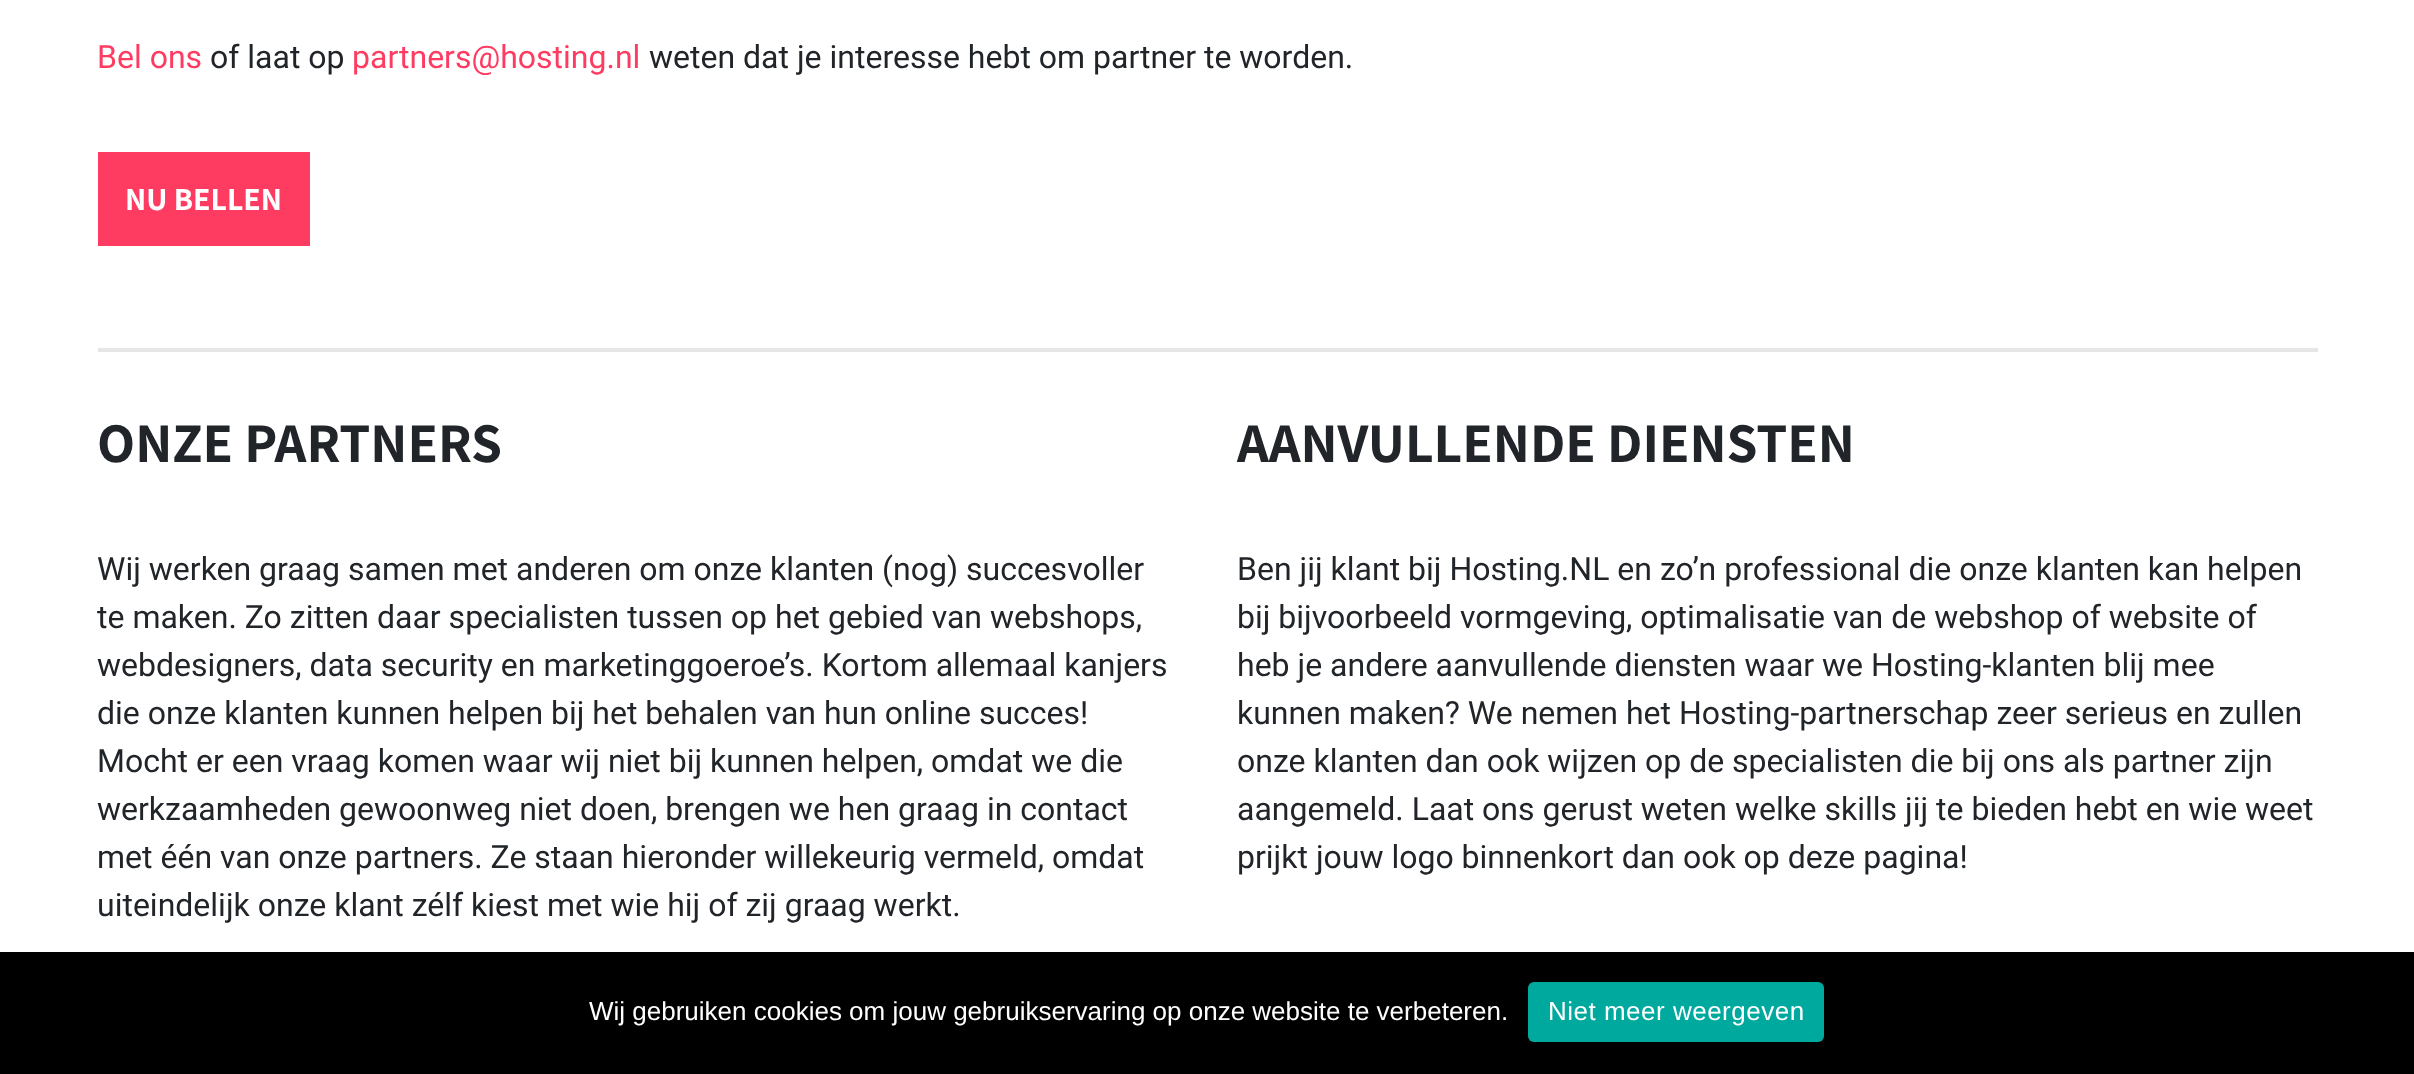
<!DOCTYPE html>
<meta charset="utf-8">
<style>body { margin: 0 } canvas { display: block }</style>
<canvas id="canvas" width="2414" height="1074"></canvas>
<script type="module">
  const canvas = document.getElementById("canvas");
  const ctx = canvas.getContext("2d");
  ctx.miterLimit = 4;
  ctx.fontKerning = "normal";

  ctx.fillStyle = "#ffffff";
  ctx.fillRect(0, 0, 2414, 1074);
  ctx.font = "32px Roboto";
  ctx.fillStyle = "#fe3c62";
  ctx.fillText("Bel ons", 97, 68);
  ctx.fillStyle = "#212529";
  ctx.fillText("of laat op", 210, 68);
  ctx.fillStyle = "#fe3c62";
  ctx.fillText("partners@hosting.nl", 352, 68);
  ctx.fillStyle = "#212529";
  ctx.fillText("weten dat je interesse hebt om partner te worden.", 649, 68);
  ctx.fillStyle = "#fe3c62";
  ctx.fillRect(98, 152, 212, 94);
  ctx.font = "bold 32px Assistant";
  ctx.fillStyle = "#ffffff";
  ctx.fillText("NU BELLEN", 125, 210);
  ctx.fillStyle = "#e6e6e6";
  ctx.fillRect(98, 348, 2220, 4);
  ctx.font = "bold 56px Assistant";
  ctx.fillStyle = "#212529";
  ctx.fillText("ONZE PARTNERS", 97, 462);
  ctx.font = "32px Roboto";
  ctx.fillText("Wij werken graag samen met anderen om onze klanten (nog) succesvoller", 97, 580);
  ctx.fillText("te maken. Zo zitten daar specialisten tussen op het gebied van webshops,", 97, 628);
  ctx.fillText("webdesigners, data security en marketinggoeroe’s. Kortom allemaal kanjers", 97, 676);
  ctx.fillText("die onze klanten kunnen helpen bij het behalen van hun online succes!", 97, 724);
  ctx.fillText("Mocht er een vraag komen waar wij niet bij kunnen helpen, omdat we die", 97, 772);
  ctx.fillText("werkzaamheden gewoonweg niet doen, brengen we hen graag in contact", 97, 820);
  ctx.fillText("met één van onze partners. Ze staan hieronder willekeurig vermeld, omdat", 97, 868);
  ctx.fillText("uiteindelijk onze klant zélf kiest met wie hij of zij graag werkt.", 97, 916);
  ctx.font = "bold 56px Assistant";
  ctx.fillText("AANVULLENDE DIENSTEN", 1237, 462);
  ctx.font = "32px Roboto";
  ctx.fillText("Ben jij klant bij Hosting.NL en zo’n professional die onze klanten kan helpen", 1237, 580);
  ctx.fillText("bij bijvoorbeeld vormgeving, optimalisatie van de webshop of website of", 1237, 628);
  ctx.fillText("heb je andere aanvullende diensten waar we Hosting-klanten blij mee", 1237, 676);
  ctx.fillText("kunnen maken? We nemen het Hosting-partnerschap zeer serieus en zullen", 1237, 724);
  ctx.fillText("onze klanten dan ook wijzen op de specialisten die bij ons als partner zijn", 1237, 772);
  ctx.fillText("aangemeld. Laat ons gerust weten welke skills jij te bieden hebt en wie weet", 1237, 820);
  ctx.fillText("prijkt jouw logo binnenkort dan ook op deze pagina!", 1237, 868);
  ctx.fillStyle = "#000000";
  ctx.fillRect(0, 952, 2414, 122);
  ctx.font = "26px Liberation Sans";
  ctx.fillStyle = "#ffffff";
  ctx.fillText("Wij gebruiken cookies om jouw gebruikservaring op onze website te verbeteren.", 589, 1020);
  ctx.fillStyle = "#00a99d";
  ctx.beginPath();
  ctx.roundRect(1528, 982, 296, 60, 6);
  ctx.fill();
  ctx.letterSpacing = "0.5px";
  ctx.fillStyle = "#ffffff";
  ctx.fillText("Niet meer weergeven", 1548, 1020);
</script>
